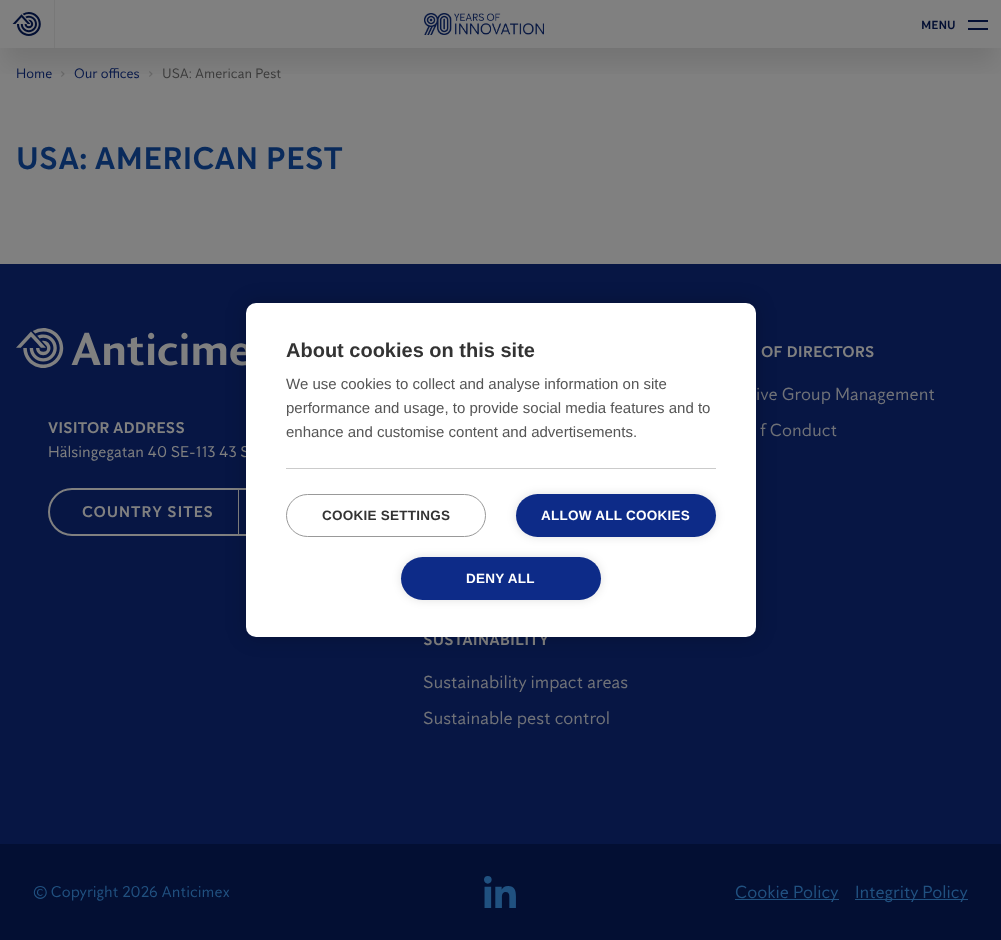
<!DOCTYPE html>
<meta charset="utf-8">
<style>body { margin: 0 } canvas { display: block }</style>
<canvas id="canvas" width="1001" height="940"></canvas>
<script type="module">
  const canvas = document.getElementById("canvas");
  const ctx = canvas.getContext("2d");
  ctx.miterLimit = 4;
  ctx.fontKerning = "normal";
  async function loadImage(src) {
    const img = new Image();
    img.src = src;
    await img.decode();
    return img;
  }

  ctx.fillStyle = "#808080";
  ctx.fillRect(0, 0, 1001, 940);
  ctx.drawImage(await loadImage("img3.png"), 61, 71, 4, 6);
  ctx.drawImage(await loadImage("img3.png"), 149, 71, 4, 6);
  ctx.save();
  ctx.beginPath();
  ctx.rect(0, 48, 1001, 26);
  ctx.clip();
  ctx.fillStyle = "rgba(0, 0, 0, 0.1)";
  ctx.filter = "blur(12.5px)";
  ctx.beginPath();
  ctx.rect(5, 25, 991, 38);
  ctx.fill();
  ctx.filter = "none";
  ctx.restore();
  ctx.fillStyle = "#787878";
  ctx.fillRect(54, 0, 1, 48);
  ctx.drawImage(await loadImage("img1.png"), 12, 12, 29, 24);
  ctx.drawImage(await loadImage("img2.png"), 424, 13, 120, 22);
  ctx.font = "bold 12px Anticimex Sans";
  ctx.fillStyle = "#030f33";
  ctx.fillText("MENU", 921, 29);
  ctx.fillRect(968, 20, 20, 2);
  ctx.fillRect(968, 28, 20, 2);
  ctx.font = "14px Anticimex Sans";
  ctx.fillStyle = "#071849";
  ctx.fillText("Home", 16, 78);
  ctx.fillText("Our offices", 74, 78);
  ctx.fillStyle = "#3b3b3b";
  ctx.fillText("USA: American Pest", 162, 78);
  ctx.font = "bold 32px Anticimex Sans";
  ctx.fillStyle = "#092a5b";
  ctx.fillText("USA: AMERICAN PEST", 16, 169);
  ctx.fillStyle = "#071644";
  ctx.fillRect(0, 264, 1001, 580);
  ctx.drawImage(await loadImage("img4.png"), 16, 328, 230, 40);
  ctx.font = "bold 16px Anticimex Sans";
  ctx.fillStyle = "#808080";
  ctx.fillText("VISITOR ADDRESS", 48, 433);
  ctx.font = "16px Anticimex Sans";
  ctx.fillText("Hälsingegatan 40 SE-113 43 S", 48, 457);
  ctx.beginPath();
  ctx.roundRect(49, 489, 238, 46, 23);
  ctx.strokeStyle = "#808080";
  ctx.lineWidth = 2;
  ctx.stroke();
  ctx.letterSpacing = "0.75px";
  ctx.font = "bold 16px Anticimex Sans";
  ctx.fillText("COUNTRY SITES", 82, 517);
  ctx.fillRect(238, 490, 1, 44);
  ctx.letterSpacing = "0px";
  ctx.fillText("OF DIRECTORS", 761, 357);
  ctx.font = "18px Anticimex Sans";
  ctx.fillStyle = "#707278";
  ctx.fillText("ive Group Management", 756, 400);
  ctx.fillText("f Conduct", 760, 436);
  ctx.font = "bold 16px Anticimex Sans";
  ctx.fillStyle = "#808080";
  ctx.fillText("SUSTAINABILITY", 423, 645);
  ctx.font = "18px Anticimex Sans";
  ctx.fillStyle = "#707278";
  ctx.fillText("Sustainability impact areas", 423, 688);
  ctx.fillText("Sustainable pest control", 423, 724);
  ctx.fillStyle = "#030f33";
  ctx.fillRect(0, 844, 1001, 96);
  ctx.font = "16px Anticimex Sans";
  ctx.fillStyle = "#215180";
  ctx.fillText("© Copyright 2026 Anticimex", 33, 897);
  ctx.drawImage(await loadImage("img5.png"), 484, 876, 32, 32);
  ctx.fillRect(735, 899, 104, 1);
  ctx.font = "18px Anticimex Sans";
  ctx.fillText("Cookie Policy", 735, 898);
  ctx.fillRect(855, 899, 113, 1);
  ctx.fillText("Integrity Policy", 855, 898);
  ctx.fillStyle = "rgba(0, 0, 0, 0.2)";
  ctx.filter = "blur(10px)";
  ctx.beginPath();
  ctx.roundRect(246, 303, 510, 334, 10);
  ctx.fill();
  ctx.filter = "none";
  ctx.fillStyle = "#ffffff";
  ctx.beginPath();
  ctx.roundRect(246, 303, 510, 334, 10);
  ctx.fill();
  ctx.fillStyle = "#cbcbcb";
  ctx.fillRect(286, 468, 430, 1);
  ctx.font = "bold 20px Liberation Sans";
  ctx.fillStyle = "#333333";
  ctx.fillText("About cookies on this site", 286, 357);
  ctx.font = "15px Liberation Sans";
  ctx.fillStyle = "#555555";
  ctx.fillText("We use cookies to collect and analyse information on site", 286, 389);
  ctx.fillText("performance and usage, to provide social media features and to", 286, 413);
  ctx.fillText("enhance and customise content and advertisements.", 286, 437);
  ctx.beginPath();
  ctx.roundRect(286.5, 494.5, 199, 42, 21);
  ctx.strokeStyle = "#999999";
  ctx.lineWidth = 1;
  ctx.stroke();
  ctx.letterSpacing = "0.25px";
  ctx.font = "bold 13.5px Liberation Sans";
  ctx.fillStyle = "#333333";
  ctx.fillText("COOKIE SETTINGS", 322, 520);
  ctx.fillStyle = "rgba(0, 0, 0, 0.12)";
  ctx.filter = "blur(5px)";
  ctx.beginPath();
  ctx.roundRect(516, 494, 200, 43, 21.5);
  ctx.fill();
  ctx.filter = "none";
  ctx.fillStyle = "#0d2b88";
  ctx.beginPath();
  ctx.roundRect(516, 494, 200, 43, 21.5);
  ctx.fill();
  ctx.fillStyle = "#ffffff";
  ctx.fillText("ALLOW ALL COOKIES", 541, 520);
  ctx.fillStyle = "rgba(0, 0, 0, 0.12)";
  ctx.filter = "blur(5px)";
  ctx.beginPath();
  ctx.roundRect(401, 557, 200, 43, 21.5);
  ctx.fill();
  ctx.filter = "none";
  ctx.fillStyle = "#0d2b88";
  ctx.beginPath();
  ctx.roundRect(401, 557, 200, 43, 21.5);
  ctx.fill();
  ctx.fillStyle = "#ffffff";
  ctx.fillText("DENY ALL", 466, 583);
</script>
